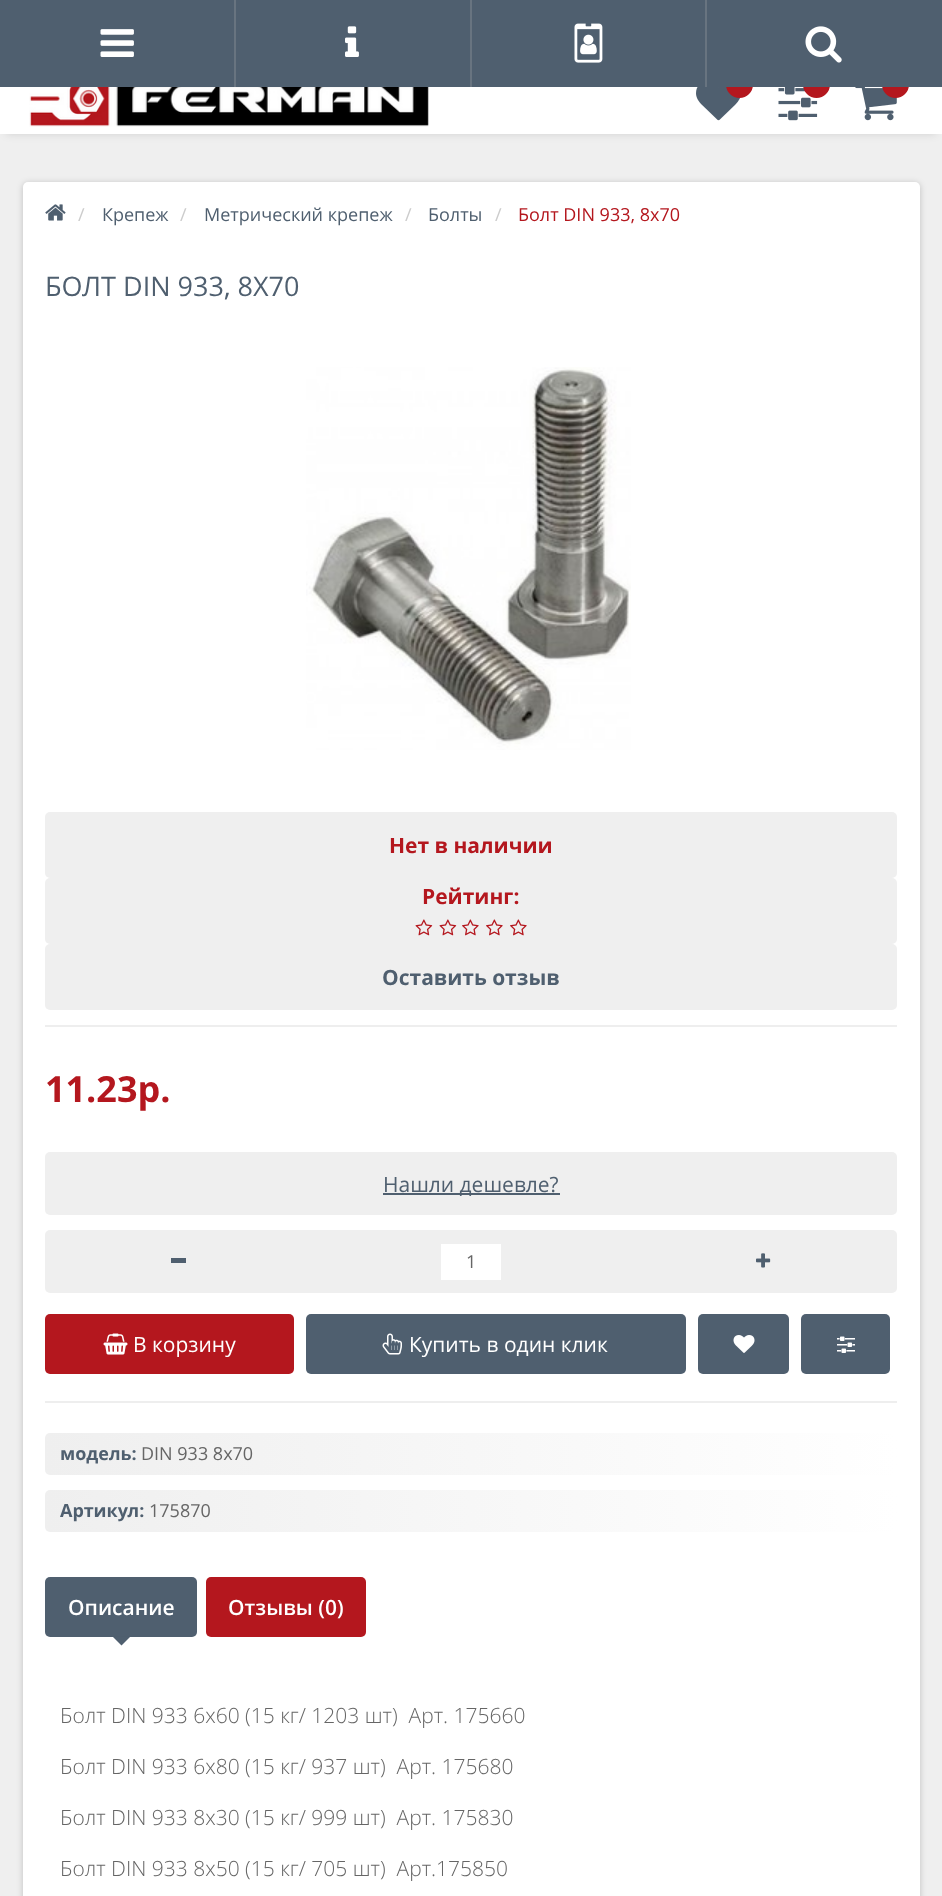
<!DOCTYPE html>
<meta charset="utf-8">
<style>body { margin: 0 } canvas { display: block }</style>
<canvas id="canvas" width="942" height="1896"></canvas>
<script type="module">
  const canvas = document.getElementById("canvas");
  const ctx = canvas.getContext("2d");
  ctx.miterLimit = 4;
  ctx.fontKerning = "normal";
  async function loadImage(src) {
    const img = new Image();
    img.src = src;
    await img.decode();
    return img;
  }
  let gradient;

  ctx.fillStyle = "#efefef";
  ctx.fillRect(0, 0, 942, 1896);
  ctx.fillStyle = "rgba(0, 0, 0, 0.12)";
  ctx.filter = "blur(4.5px)";
  ctx.beginPath();
  ctx.rect(6, 12, 930, 122);
  ctx.fill();
  ctx.filter = "none";
  ctx.fillStyle = "#ffffff";
  ctx.fillRect(0, 87, 942, 47);
  ctx.drawImage(await loadImage("img1.png"), 29, 87, 400, 40);
  ctx.drawImage(await loadImage("img2.png"), 696, 87, 45, 34);
  ctx.fillStyle = "#b4171e";
  ctx.beginPath();
  ctx.arc(739.5, 84.5, 13.5, 0, Math.PI * 2);
  ctx.fill();
  ctx.drawImage(await loadImage("img3.png"), 778, 87, 40, 34);
  ctx.beginPath();
  ctx.arc(816.5, 84.5, 13.5, 0, Math.PI * 2);
  ctx.fill();
  ctx.drawImage(await loadImage("img4.png"), 855, 87, 42, 34);
  ctx.beginPath();
  ctx.arc(895.5, 84.5, 13.5, 0, Math.PI * 2);
  ctx.fill();
  ctx.fillStyle = "#4f5f6f";
  ctx.fillRect(0, 0, 942, 87);
  ctx.fillStyle = "#687480";
  ctx.fillRect(234, 0, 2, 87);
  ctx.drawImage(await loadImage("img5.png"), 100, 29, 34, 28);
  ctx.fillRect(470, 0, 2, 87);
  ctx.drawImage(await loadImage("img6.png"), 345, 26, 14, 31);
  ctx.fillRect(705, 0, 2, 87);
  ctx.drawImage(await loadImage("img7.png"), 574, 23, 29, 40);
  ctx.drawImage(await loadImage("img8.png"), 805, 26, 37, 37);
  ctx.fillStyle = "rgba(0, 0, 0, 0.2)";
  ctx.filter = "blur(3px)";
  ctx.beginPath();
  ctx.roundRect(23, 183, 897, 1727, 5);
  ctx.fill();
  ctx.filter = "none";
  ctx.fillStyle = "#ffffff";
  ctx.beginPath();
  ctx.roundRect(23, 182, 897, 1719, 5);
  ctx.fill();
  ctx.drawImage(await loadImage("img9.png"), 45, 204, 21, 17);
  ctx.font = "18px Open Sans";
  ctx.fillStyle = "#cccccc";
  ctx.fillText("/", 78, 221);
  ctx.fillStyle = "#4f5f6f";
  ctx.fillText("Крепеж", 102, 221);
  ctx.fillStyle = "#cccccc";
  ctx.fillText("/", 180, 221);
  ctx.fillStyle = "#4f5f6f";
  ctx.fillText("Метрический крепеж", 204, 221);
  ctx.fillStyle = "#cccccc";
  ctx.fillText("/", 405, 221);
  ctx.fillStyle = "#4f5f6f";
  ctx.fillText("Болты", 428, 221);
  ctx.fillStyle = "#cccccc";
  ctx.fillText("/", 495, 221);
  ctx.fillStyle = "#b4171e";
  ctx.fillText("Болт DIN 933, 8х70", 518, 221);
  ctx.font = "27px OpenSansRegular";
  ctx.fillStyle = "#4f5f6f";
  ctx.fillText("БОЛТ DIN 933, 8Х70", 45, 296);
  ctx.drawImage(await loadImage("img10.png"), 306, 367, 325, 383);
  ctx.fillStyle = "#efefef";
  ctx.beginPath();
  ctx.roundRect(45, 812, 852, 66, 5);
  ctx.fill();
  ctx.font = "bold 21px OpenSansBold";
  ctx.fillStyle = "#b4171e";
  ctx.fillText("Нет в наличии", 389, 853);
  ctx.fillStyle = "#efefef";
  ctx.beginPath();
  ctx.roundRect(45, 878, 852, 66, 5);
  ctx.fill();
  ctx.fillStyle = "#b4171e";
  ctx.fillText("Рейтинг:", 422, 904);
  ctx.drawImage(await loadImage("img11.png"), 415, 919, 18, 17);
  ctx.drawImage(await loadImage("img11.png"), 439, 919, 18, 17);
  ctx.drawImage(await loadImage("img12.png"), 462, 919, 17, 17);
  ctx.drawImage(await loadImage("img12.png"), 486, 919, 17, 17);
  ctx.drawImage(await loadImage("img12.png"), 510, 919, 17, 17);
  ctx.fillStyle = "#efefef";
  ctx.beginPath();
  ctx.roundRect(45, 944, 852, 66, 5);
  ctx.fill();
  ctx.fillStyle = "#4f5f6f";
  ctx.fillText("Оставить отзыв", 382, 985);
  ctx.fillStyle = "#eeeeee";
  ctx.fillRect(45, 1025, 852, 2);
  ctx.font = "bold 36px OpenSansBold";
  ctx.fillStyle = "#b4171e";
  ctx.fillText("11.23р.", 45, 1102);
  ctx.fillStyle = "#efefef";
  ctx.beginPath();
  ctx.roundRect(45, 1152, 852, 63, 5);
  ctx.fill();
  ctx.fillStyle = "#4f5f6f";
  ctx.fillRect(383, 1193, 177, 2);
  ctx.font = "21px OpenSansRegular";
  ctx.fillText("Нашли дешевле?", 383, 1192);
  ctx.fillStyle = "#efefef";
  ctx.beginPath();
  ctx.roundRect(45, 1230, 852, 63, 5);
  ctx.fill();
  ctx.fillStyle = "#4f5f6f";
  ctx.fillRect(171, 1258, 15, 5);
  ctx.fillStyle = "#ffffff";
  ctx.fillRect(441, 1244, 60, 36);
  ctx.font = "18px Open Sans";
  ctx.fillStyle = "#666666";
  ctx.fillText("1", 466, 1268);
  ctx.drawImage(await loadImage("img13.png"), 756, 1253, 15, 15);
  ctx.fillStyle = "#b4171e";
  ctx.beginPath();
  ctx.roundRect(45, 1314, 249, 60, 5);
  ctx.fill();
  ctx.drawImage(await loadImage("img14.png"), 103, 1333, 25, 22);
  ctx.font = "21px Open Sans";
  ctx.fillStyle = "#ffffff";
  ctx.fillText("В корзину", 133, 1352);
  ctx.fillStyle = "#4f5f6f";
  ctx.beginPath();
  ctx.roundRect(306, 1314, 380, 60, 5);
  ctx.fill();
  ctx.drawImage(await loadImage("img15.png"), 382, 1333, 20, 22);
  ctx.fillStyle = "#ffffff";
  ctx.fillText("Купить в один клик", 409, 1352);
  ctx.fillStyle = "#4f5f6f";
  ctx.beginPath();
  ctx.roundRect(698, 1314, 91, 60, 5);
  ctx.fill();
  ctx.drawImage(await loadImage("img16.png"), 733, 1335, 22, 18);
  ctx.beginPath();
  ctx.roundRect(801, 1314, 89, 60, 5);
  ctx.fill();
  ctx.drawImage(await loadImage("img17.png"), 837, 1336, 18, 17);
  ctx.fillStyle = "#eeeeee";
  ctx.fillRect(45, 1401, 852, 2);
  gradient = ctx.createLinearGradient(45, 1454, 897, 1454);
  gradient.addColorStop(0, "#efefef");
  gradient.addColorStop(1, "#ffffff");
  ctx.fillStyle = gradient;
  ctx.beginPath();
  ctx.roundRect(45, 1433, 852, 42, 5);
  ctx.fill();
  ctx.font = "bold 18px OpenSansBold";
  ctx.fillStyle = "#4f5f6f";
  ctx.fillText("модель:", 60, 1460);
  ctx.font = "18px Open Sans";
  ctx.fillStyle = "#666666";
  ctx.fillText("DIN 933 8х70", 141, 1460);
  gradient = ctx.createLinearGradient(45, 1511, 897, 1511);
  gradient.addColorStop(0, "#efefef");
  gradient.addColorStop(1, "#ffffff");
  ctx.fillStyle = gradient;
  ctx.beginPath();
  ctx.roundRect(45, 1490, 852, 42, 5);
  ctx.fill();
  ctx.font = "bold 18px OpenSansBold";
  ctx.fillStyle = "#4f5f6f";
  ctx.fillText("Артикул:", 60, 1517);
  ctx.font = "18px Open Sans";
  ctx.fillStyle = "#666666";
  ctx.fillText("175870", 149, 1517);
  ctx.fillStyle = "#4f5f6f";
  ctx.beginPath();
  ctx.roundRect(45, 1577, 152, 60, 5);
  ctx.fill();
  ctx.font = "600 21px Open Sans";
  ctx.fillStyle = "#ffffff";
  ctx.fillText("Описание", 68, 1615);
  ctx.fillStyle = "#4f5f6f";
  ctx.beginPath();
  ctx.moveTo(112.5, 1636.5);
  ctx.lineTo(130.5, 1636.5);
  ctx.lineTo(121.5, 1645.5);
  ctx.closePath();
  ctx.fill();
  ctx.fillStyle = "#b4171e";
  ctx.beginPath();
  ctx.roundRect(206, 1577, 160, 60, 5);
  ctx.fill();
  ctx.fillStyle = "#ffffff";
  ctx.fillText("Отзывы (0)", 228, 1615);
  ctx.font = "300 21px Open Sans";
  ctx.fillStyle = "#666666";
  ctx.fillText("Болт DIN 933 6х60 (15 кг/ 1203 шт)  Арт. 175660", 60, 1723);
  ctx.fillText("Болт DIN 933 6х80 (15 кг/ 937 шт)  Арт. 175680", 60, 1774);
  ctx.fillText("Болт DIN 933 8х30 (15 кг/ 999 шт)  Арт. 175830", 60, 1825);
  ctx.fillText("Болт DIN 933 8х50 (15 кг/ 705 шт)  Арт.175850", 60, 1876);
</script>
